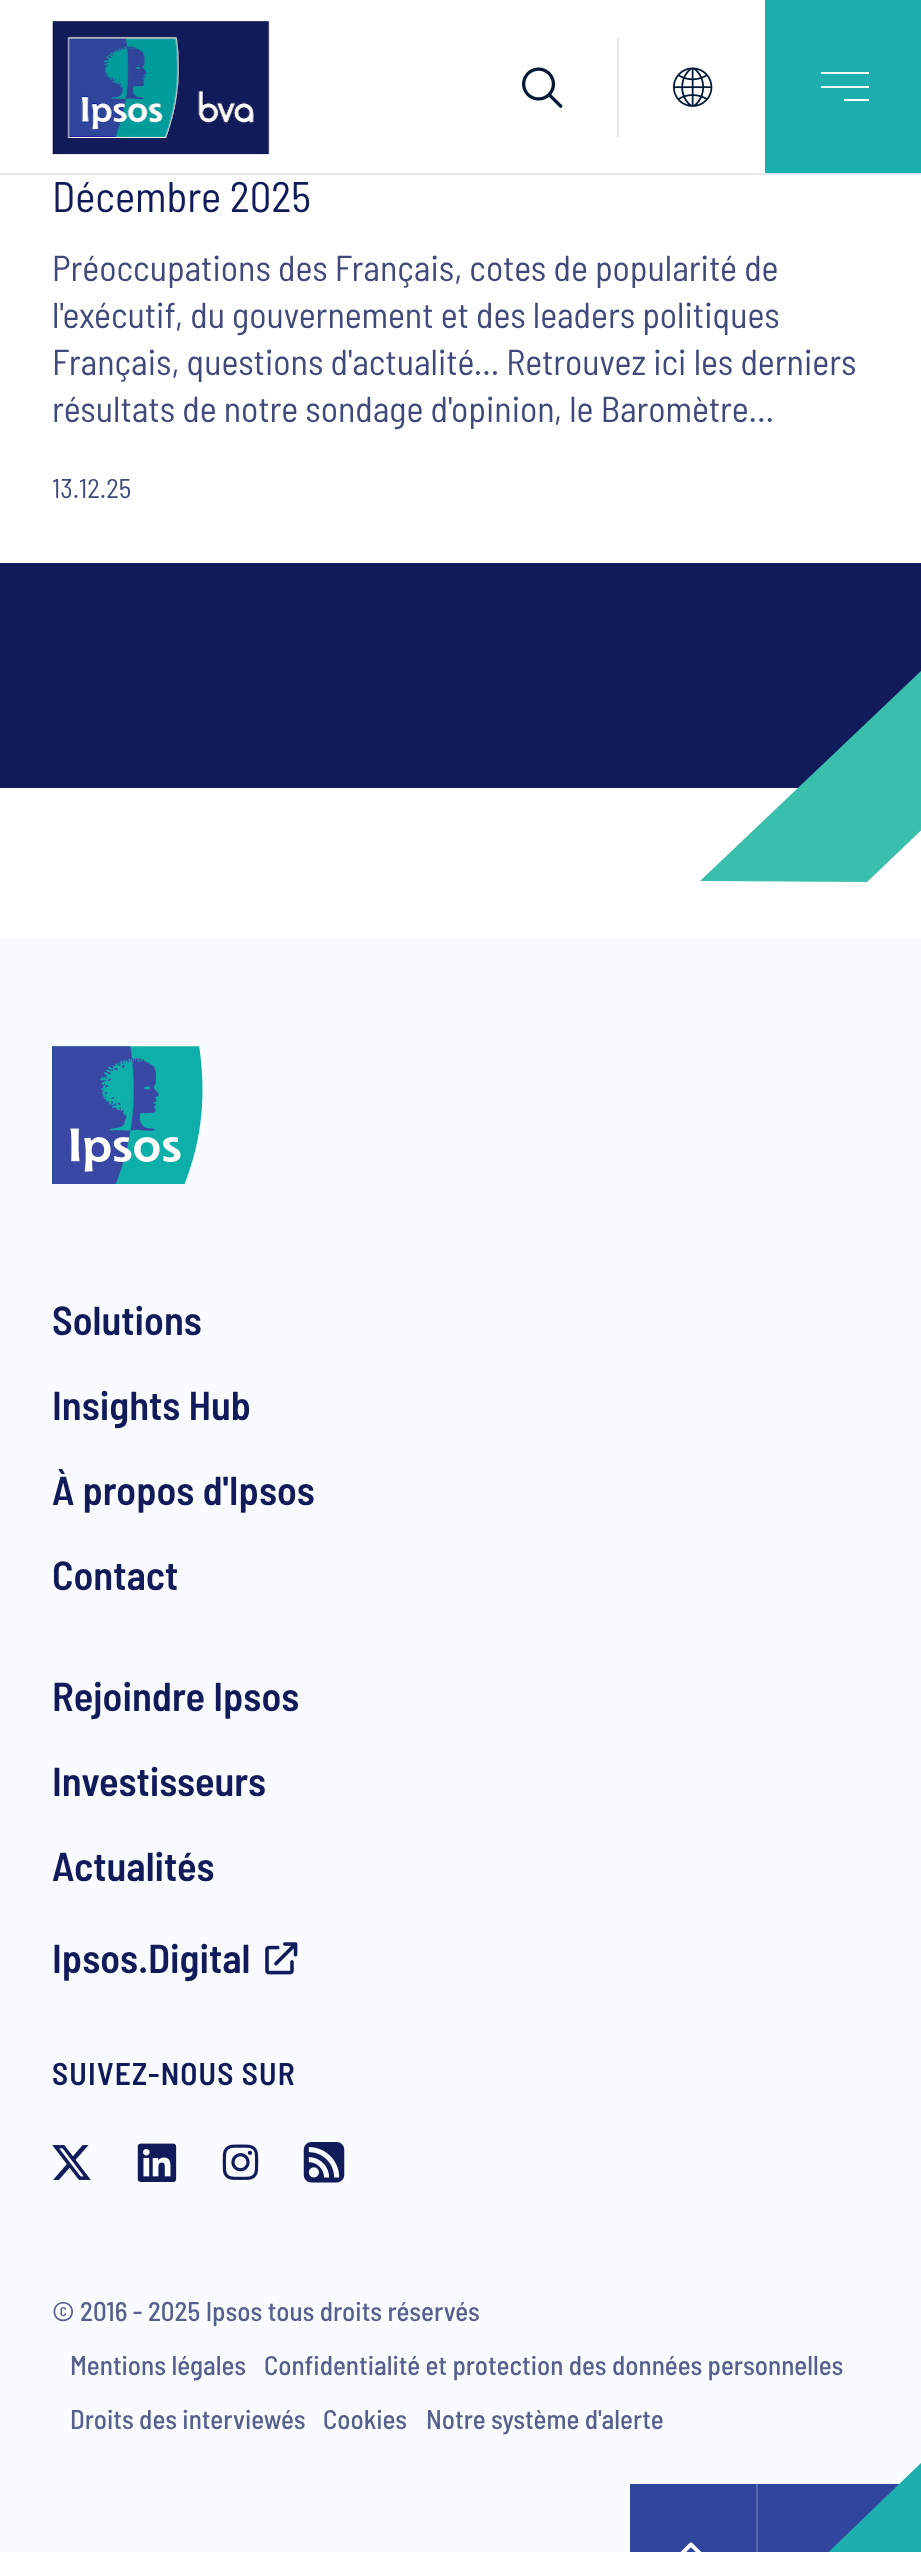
<!DOCTYPE html>
<meta charset="utf-8">
<style>body { margin: 0 } canvas { display: block }</style>
<canvas id="canvas" width="921" height="2552"></canvas>
<script type="module">
  const canvas = document.getElementById("canvas");
  const ctx = canvas.getContext("2d");
  ctx.miterLimit = 4;
  ctx.fontKerning = "normal";
  async function loadImage(src) {
    const img = new Image();
    img.src = src;
    await img.decode();
    return img;
  }

  ctx.fillStyle = "#ffffff";
  ctx.fillRect(0, 0, 921, 2552);
  ctx.fillStyle = "#e7e8ef";
  ctx.fillRect(0, 173, 921, 2);
  ctx.drawImage(await loadImage("img1.png"), 52, 21, 218, 134);
  ctx.drawImage(await loadImage("img2.png"), 522, 67, 41, 41);
  ctx.fillRect(617, 38, 2, 99);
  ctx.drawImage(await loadImage("img3.png"), 672, 67, 41, 40);
  ctx.fillStyle = "#1dafad";
  ctx.fillRect(765, 0, 156, 173);
  ctx.fillStyle = "#ffffff";
  ctx.fillRect(821, 72, 48, 2);
  ctx.fillRect(821, 86, 48, 2);
  ctx.fillRect(844, 99, 25, 2);
  ctx.font = "42.75px Barlow Semi Condensed";
  ctx.fillStyle = "#121b5a";
  ctx.fillText("Décembre 2025", 52, 212);
  ctx.font = "36px Barlow Semi Condensed";
  ctx.fillStyle = "#41497b";
  ctx.fillText("Préoccupations des Français, cotes de popularité de", 52, 281);
  ctx.fillText("l'exécutif, du gouvernement et des leaders politiques", 52, 328);
  ctx.fillText("Français, questions d'actualité... Retrouvez ici les derniers", 52, 375);
  ctx.fillText("résultats de notre sondage d'opinion, le Baromètre…", 52, 422);
  ctx.font = "27px Barlow Semi Condensed";
  ctx.fillText("13.12.25", 52, 498);
  ctx.fillStyle = "#121b5a";
  ctx.fillRect(0, 563, 921, 225);
  ctx.fillStyle = "#3abfac";
  ctx.beginPath();
  ctx.moveTo(700, 881);
  ctx.lineTo(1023, 574);
  ctx.lineTo(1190, 574);
  ctx.lineTo(867, 882);
  ctx.closePath();
  ctx.fill();
  ctx.fillStyle = "#f9fcff";
  ctx.fillRect(0, 938, 921, 1614);
  ctx.drawImage(await loadImage("img4.png"), 52, 1046, 151, 138);
  ctx.font = "600 40.5px Barlow Semi Condensed";
  ctx.fillStyle = "#121b5a";
  ctx.fillText("Solutions", 52, 1335);
  ctx.fillText("Insights Hub", 52, 1420);
  ctx.fillText("À propos d'Ipsos", 52, 1505);
  ctx.fillText("Contact", 52, 1590);
  ctx.fillText("Rejoindre Ipsos", 52, 1711);
  ctx.fillText("Investisseurs", 52, 1796);
  ctx.fillText("Actualités", 52, 1881);
  ctx.fillText("Ipsos.Digital", 52, 1973);
  ctx.drawImage(await loadImage("img5.png"), 265, 1942, 33, 33);
  ctx.letterSpacing = "1.1px";
  ctx.font = "600 31.5px Barlow Semi Condensed";
  ctx.fillText("SUIVEZ-NOUS SUR", 52, 2085);
  ctx.drawImage(await loadImage("img6.png"), 52, 2145, 39, 35);
  ctx.drawImage(await loadImage("img7.png"), 137, 2143, 40, 39);
  ctx.drawImage(await loadImage("img8.png"), 222, 2144, 37, 36);
  ctx.drawImage(await loadImage("img9.png"), 303, 2142, 42, 41);
  ctx.letterSpacing = "0px";
  ctx.font = "500 27px Barlow Semi Condensed";
  ctx.fillStyle = "#575f8c";
  ctx.fillText("© 2016 - 2025 Ipsos tous droits réservés", 52, 2321);
  ctx.fillText("Mentions légales", 70, 2375);
  ctx.fillText("Confidentialité et protection des données personnelles", 264, 2375);
  ctx.fillText("Droits des interviewés", 70, 2429);
  ctx.fillText("Cookies", 323, 2429);
  ctx.fillText("Notre système d'alerte", 426, 2429);
  ctx.fillStyle = "#2f469c";
  ctx.fillRect(630, 2484, 270, 68);
  ctx.fillStyle = "#1dafad";
  ctx.beginPath();
  ctx.moveTo(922, 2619);
  ctx.lineTo(759, 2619);
  ctx.lineTo(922, 2462);
  ctx.closePath();
  ctx.fill();
  ctx.fillStyle = "#596bb0";
  ctx.fillRect(756, 2484, 2, 68);
  ctx.drawImage(await loadImage("img10.png"), 680, 2542, 22, 10);
</script>
